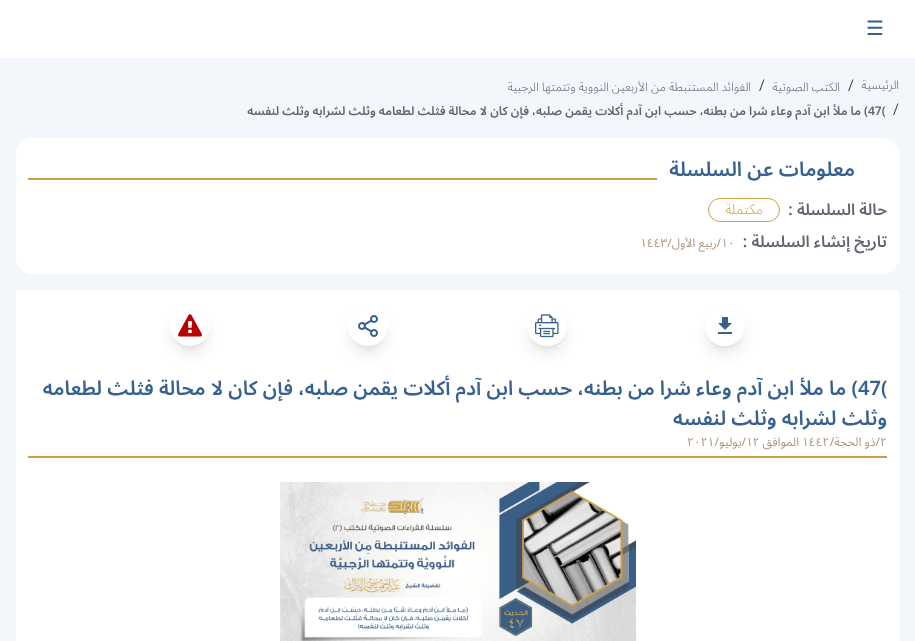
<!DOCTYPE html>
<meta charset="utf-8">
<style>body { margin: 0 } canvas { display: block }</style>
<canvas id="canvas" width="915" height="641"></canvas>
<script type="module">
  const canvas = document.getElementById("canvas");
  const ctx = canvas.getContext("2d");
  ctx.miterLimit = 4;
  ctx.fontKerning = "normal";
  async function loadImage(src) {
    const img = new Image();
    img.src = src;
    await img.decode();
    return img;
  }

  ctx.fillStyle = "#f3f6fa";
  ctx.fillRect(0, 0, 915, 641);
  ctx.fillStyle = "#ffffff";
  ctx.fillRect(0, 0, 915, 58);
  ctx.font = "20px DejaVu Sans";
  ctx.fillStyle = "#37618f";
  ctx.fillText("☰", 866, 35);
  ctx.direction = "rtl";
  ctx.font = "300 12px Noto Sans Arabic";
  ctx.fillStyle = "#63636f";
  ctx.fillText("الرئيسية", 899, 89);
  ctx.direction = "ltr";
  ctx.font = "300 16px Noto Sans Arabic";
  ctx.fillStyle = "#161616";
  ctx.fillText("/", 848, 91);
  ctx.direction = "rtl";
  ctx.font = "300 12px Noto Sans Arabic";
  ctx.fillStyle = "#63636f";
  ctx.fillText("الكتب الصوتية", 840, 91);
  ctx.direction = "ltr";
  ctx.font = "300 16px Noto Sans Arabic";
  ctx.fillStyle = "#161616";
  ctx.fillText("/", 759, 91);
  ctx.direction = "rtl";
  ctx.font = "300 12px Noto Sans Arabic";
  ctx.fillStyle = "#63636f";
  ctx.fillText("الفوائد المستنبطة من الأربعين النووية وتتمتها الرجبية", 751, 91);
  ctx.direction = "ltr";
  ctx.font = "300 16px Noto Sans Arabic";
  ctx.fillStyle = "#161616";
  ctx.fillText("/", 893, 115);
  ctx.font = "600 12px Noto Sans Arabic";
  ctx.fillStyle = "#63636f";
  ctx.fillText("47(", 868, 115);
  ctx.direction = "rtl";
  ctx.fillText(") ما ملأ ابن آدم وعاء شرا من بطنه، حسب ابن آدم أكلات يقمن صلبه، فإن كان لا محالة فثلث لطعامه وثلث لشرابه وثلث لنفسه", 868, 115);
  ctx.fillStyle = "#ffffff";
  ctx.beginPath();
  ctx.roundRect(16, 138, 883, 136, 16);
  ctx.fill();
  ctx.font = "600 20px Noto Sans Arabic";
  ctx.fillStyle = "#37618f";
  ctx.fillText("معلومات عن السلسلة", 855, 176);
  ctx.fillStyle = "#c99e47";
  ctx.fillRect(28, 178, 629, 2);
  ctx.font = "600 16px Noto Sans Arabic";
  ctx.fillStyle = "#63636f";
  ctx.fillText("حالة السلسلة :", 887, 215);
  ctx.beginPath();
  ctx.roundRect(708.5, 198.5, 71, 23, 11.5);
  ctx.strokeStyle = "#c99e47";
  ctx.stroke();
  ctx.font = "300 14px Noto Sans Arabic";
  ctx.fillStyle = "#c99e47";
  ctx.fillText("مكتملة", 763, 214);
  ctx.font = "600 16px Noto Sans Arabic";
  ctx.fillStyle = "#63636f";
  ctx.fillText("تاريخ إنشاء السلسلة :", 887, 247);
  ctx.direction = "ltr";
  ctx.font = "12px Noto Sans Arabic";
  ctx.fillStyle = "#ad9780";
  ctx.fillText("١٠", 721, 247);
  ctx.direction = "rtl";
  ctx.fillText("/ربيع الأول/", 721, 247);
  ctx.direction = "ltr";
  ctx.fillText("١٤٤٣", 640, 247);
  ctx.fillStyle = "#ffffff";
  ctx.fillRect(16, 290, 883, 351);
  ctx.save();
  ctx.beginPath();
  ctx.moveTo(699, 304);
  ctx.lineTo(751, 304);
  ctx.lineTo(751, 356);
  ctx.lineTo(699, 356);
  ctx.closePath();
  ctx.moveTo(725, 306);
  ctx.bezierCurveTo(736, 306, 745, 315, 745, 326);
  ctx.bezierCurveTo(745, 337, 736, 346, 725, 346);
  ctx.bezierCurveTo(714, 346, 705, 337, 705, 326);
  ctx.bezierCurveTo(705, 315, 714, 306, 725, 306);
  ctx.closePath();
  ctx.clip("evenodd");
  ctx.fillStyle = "rgba(0, 0, 0, 0.1)";
  ctx.filter = "blur(3px)";
  ctx.beginPath();
  ctx.roundRect(709, 314, 32, 32, 16);
  ctx.fill();
  ctx.filter = "none";
  ctx.restore();
  ctx.save();
  ctx.beginPath();
  ctx.moveTo(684, 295);
  ctx.lineTo(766, 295);
  ctx.lineTo(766, 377);
  ctx.lineTo(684, 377);
  ctx.closePath();
  ctx.moveTo(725, 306);
  ctx.bezierCurveTo(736, 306, 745, 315, 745, 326);
  ctx.bezierCurveTo(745, 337, 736, 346, 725, 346);
  ctx.bezierCurveTo(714, 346, 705, 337, 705, 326);
  ctx.bezierCurveTo(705, 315, 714, 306, 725, 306);
  ctx.closePath();
  ctx.clip("evenodd");
  ctx.fillStyle = "rgba(0, 0, 0, 0.1)";
  ctx.filter = "blur(7.5px)";
  ctx.beginPath();
  ctx.roundRect(708, 319, 34, 34, 17);
  ctx.fill();
  ctx.filter = "none";
  ctx.restore();
  ctx.drawImage(await loadImage("img1.png"), 718, 317, 14, 17);
  ctx.save();
  ctx.beginPath();
  ctx.moveTo(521, 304);
  ctx.lineTo(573, 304);
  ctx.lineTo(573, 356);
  ctx.lineTo(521, 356);
  ctx.closePath();
  ctx.moveTo(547, 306);
  ctx.bezierCurveTo(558, 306, 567, 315, 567, 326);
  ctx.bezierCurveTo(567, 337, 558, 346, 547, 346);
  ctx.bezierCurveTo(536, 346, 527, 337, 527, 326);
  ctx.bezierCurveTo(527, 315, 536, 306, 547, 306);
  ctx.closePath();
  ctx.clip("evenodd");
  ctx.fillStyle = "rgba(0, 0, 0, 0.1)";
  ctx.filter = "blur(3px)";
  ctx.beginPath();
  ctx.roundRect(531, 314, 32, 32, 16);
  ctx.fill();
  ctx.filter = "none";
  ctx.restore();
  ctx.save();
  ctx.beginPath();
  ctx.moveTo(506, 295);
  ctx.lineTo(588, 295);
  ctx.lineTo(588, 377);
  ctx.lineTo(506, 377);
  ctx.closePath();
  ctx.moveTo(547, 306);
  ctx.bezierCurveTo(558, 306, 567, 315, 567, 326);
  ctx.bezierCurveTo(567, 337, 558, 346, 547, 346);
  ctx.bezierCurveTo(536, 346, 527, 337, 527, 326);
  ctx.bezierCurveTo(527, 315, 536, 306, 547, 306);
  ctx.closePath();
  ctx.clip("evenodd");
  ctx.fillStyle = "rgba(0, 0, 0, 0.1)";
  ctx.filter = "blur(7.5px)";
  ctx.beginPath();
  ctx.roundRect(530, 319, 34, 34, 17);
  ctx.fill();
  ctx.filter = "none";
  ctx.restore();
  ctx.drawImage(await loadImage("img2.png"), 535, 314, 24, 24);
  ctx.save();
  ctx.beginPath();
  ctx.moveTo(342, 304);
  ctx.lineTo(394, 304);
  ctx.lineTo(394, 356);
  ctx.lineTo(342, 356);
  ctx.closePath();
  ctx.moveTo(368, 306);
  ctx.bezierCurveTo(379, 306, 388, 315, 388, 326);
  ctx.bezierCurveTo(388, 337, 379, 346, 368, 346);
  ctx.bezierCurveTo(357, 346, 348, 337, 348, 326);
  ctx.bezierCurveTo(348, 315, 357, 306, 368, 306);
  ctx.closePath();
  ctx.clip("evenodd");
  ctx.fillStyle = "rgba(0, 0, 0, 0.1)";
  ctx.filter = "blur(3px)";
  ctx.beginPath();
  ctx.roundRect(352, 314, 32, 32, 16);
  ctx.fill();
  ctx.filter = "none";
  ctx.restore();
  ctx.save();
  ctx.beginPath();
  ctx.moveTo(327, 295);
  ctx.lineTo(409, 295);
  ctx.lineTo(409, 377);
  ctx.lineTo(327, 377);
  ctx.closePath();
  ctx.moveTo(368, 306);
  ctx.bezierCurveTo(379, 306, 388, 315, 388, 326);
  ctx.bezierCurveTo(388, 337, 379, 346, 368, 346);
  ctx.bezierCurveTo(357, 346, 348, 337, 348, 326);
  ctx.bezierCurveTo(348, 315, 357, 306, 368, 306);
  ctx.closePath();
  ctx.clip("evenodd");
  ctx.fillStyle = "rgba(0, 0, 0, 0.1)";
  ctx.filter = "blur(7.5px)";
  ctx.beginPath();
  ctx.roundRect(351, 319, 34, 34, 17);
  ctx.fill();
  ctx.filter = "none";
  ctx.restore();
  ctx.drawImage(await loadImage("img3.png"), 358, 315, 20, 22);
  ctx.save();
  ctx.beginPath();
  ctx.moveTo(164, 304);
  ctx.lineTo(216, 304);
  ctx.lineTo(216, 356);
  ctx.lineTo(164, 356);
  ctx.closePath();
  ctx.moveTo(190, 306);
  ctx.bezierCurveTo(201, 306, 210, 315, 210, 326);
  ctx.bezierCurveTo(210, 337, 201, 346, 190, 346);
  ctx.bezierCurveTo(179, 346, 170, 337, 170, 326);
  ctx.bezierCurveTo(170, 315, 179, 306, 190, 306);
  ctx.closePath();
  ctx.clip("evenodd");
  ctx.fillStyle = "rgba(0, 0, 0, 0.1)";
  ctx.filter = "blur(3px)";
  ctx.beginPath();
  ctx.roundRect(174, 314, 32, 32, 16);
  ctx.fill();
  ctx.filter = "none";
  ctx.restore();
  ctx.save();
  ctx.beginPath();
  ctx.moveTo(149, 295);
  ctx.lineTo(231, 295);
  ctx.lineTo(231, 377);
  ctx.lineTo(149, 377);
  ctx.closePath();
  ctx.moveTo(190, 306);
  ctx.bezierCurveTo(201, 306, 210, 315, 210, 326);
  ctx.bezierCurveTo(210, 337, 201, 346, 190, 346);
  ctx.bezierCurveTo(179, 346, 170, 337, 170, 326);
  ctx.bezierCurveTo(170, 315, 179, 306, 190, 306);
  ctx.closePath();
  ctx.clip("evenodd");
  ctx.fillStyle = "rgba(0, 0, 0, 0.1)";
  ctx.filter = "blur(7.5px)";
  ctx.beginPath();
  ctx.roundRect(173, 319, 34, 34, 17);
  ctx.fill();
  ctx.filter = "none";
  ctx.restore();
  ctx.drawImage(await loadImage("img4.png"), 178, 314, 24, 23);
  ctx.fillStyle = "#c99e47";
  ctx.fillRect(28, 456, 859, 2);
  ctx.font = "600 20px Noto Sans Arabic";
  ctx.fillStyle = "#37618f";
  ctx.fillText("47(", 858, 395);
  ctx.direction = "rtl";
  ctx.fillText(") ما ملأ ابن آدم وعاء شرا من بطنه، حسب ابن آدم أكلات يقمن صلبه، فإن كان لا محالة فثلث لطعامه", 858, 395);
  ctx.fillText("وثلث لشرابه وثلث لنفسه", 887, 425);
  ctx.direction = "ltr";
  ctx.font = "12px Noto Sans Arabic";
  ctx.fillStyle = "#ad9780";
  ctx.fillText("٢", 880, 446);
  ctx.direction = "rtl";
  ctx.fillText("/ذو الحجة/", 880, 446);
  ctx.direction = "ltr";
  ctx.fillText("١٤٤٢", 802, 446);
  ctx.direction = "rtl";
  ctx.fillText("الموافق", 799, 446);
  ctx.direction = "ltr";
  ctx.fillText("١٢", 746, 446);
  ctx.direction = "rtl";
  ctx.fillText("/يوليو/", 746, 446);
  ctx.direction = "ltr";
  ctx.fillText("٢٠٢١", 687, 446);
  ctx.drawImage(await loadImage("img5.png"), 280, 482, 356, 159);
</script>
